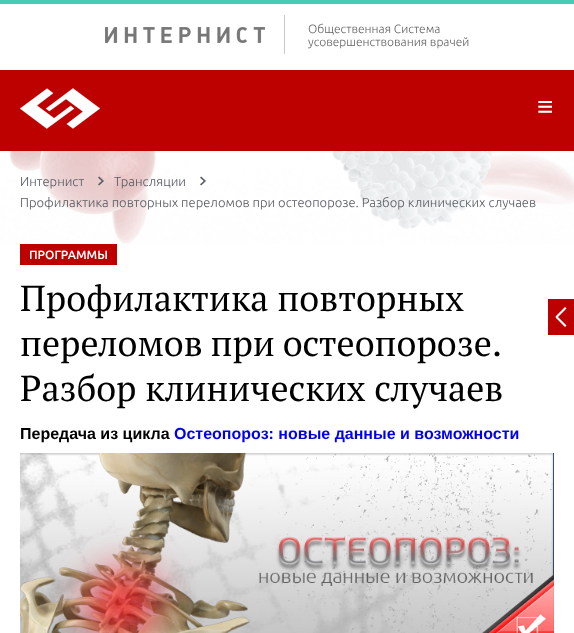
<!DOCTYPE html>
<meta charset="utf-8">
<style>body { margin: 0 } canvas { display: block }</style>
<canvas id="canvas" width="574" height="633"></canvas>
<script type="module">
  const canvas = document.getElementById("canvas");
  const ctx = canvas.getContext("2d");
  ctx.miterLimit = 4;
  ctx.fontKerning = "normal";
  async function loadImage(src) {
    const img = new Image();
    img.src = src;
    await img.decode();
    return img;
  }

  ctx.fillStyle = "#ffffff";
  ctx.fillRect(0, 0, 574, 633);
  ctx.fillStyle = "#48cab7";
  ctx.fillRect(0, 0, 574, 4);
  ctx.drawImage(await loadImage("img1.png"), 0, 151, 574, 93);
  ctx.drawImage(await loadImage("img2.png"), 105, 27, 160, 16);
  ctx.fillStyle = "#c5c8ce";
  ctx.fillRect(284, 15, 1, 39);
  ctx.font = "300 12px Ubuntu";
  ctx.fillStyle = "#666666";
  ctx.fillText("Общественная Система", 308, 33);
  ctx.fillText("усовершенствования врачей", 308, 46);
  ctx.fillStyle = "#bd0100";
  ctx.fillRect(0, 70, 574, 81);
  ctx.drawImage(await loadImage("img3.png"), 20, 88, 80, 41);
  ctx.font = "28px Liberation Sans";
  ctx.fillStyle = "#ffffff";
  ctx.fillText("≡", 537, 116);
  ctx.font = "300 13px Ubuntu";
  ctx.fillStyle = "#585c64";
  ctx.fillText("Интернист", 20, 186);
  ctx.drawImage(await loadImage("img4.png"), 98, 176, 6, 10);
  ctx.fillText("Трансляции", 114, 186);
  ctx.drawImage(await loadImage("img5.png"), 200, 176, 6, 10);
  ctx.fillText("Профилактика повторных переломов при остеопорозе. Разбор клинических случаев", 20, 207);
  ctx.fillStyle = "#bd0100";
  ctx.fillRect(20, 244, 97, 21);
  ctx.font = "500 12px Ubuntu";
  ctx.fillStyle = "#ffffff";
  ctx.fillText("ПРОГРАММЫ", 29, 259);
  ctx.font = "36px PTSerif";
  ctx.fillStyle = "#000000";
  ctx.fillText("Профилактика повторных", 20, 311);
  ctx.wordSpacing = "-1px";
  ctx.fillText("переломов при остеопорозе.", 20, 356);
  ctx.wordSpacing = "0px";
  ctx.fillText("Разбор клинических случаев", 20, 401);
  ctx.font = "bold 16px Liberation Sans";
  ctx.fillText("Передача из цикла", 20, 439);
  ctx.fillStyle = "#0000ee";
  ctx.fillText("Остеопороз: новые данные и возможности", 174, 439);
  ctx.drawImage(await loadImage("img6.png"), 20, 453, 534, 180);
  ctx.fillStyle = "#bd0100";
  ctx.fillRect(548, 299, 26, 36);
  ctx.fillStyle = "#ffffff";
  ctx.beginPath();
  ctx.moveTo(555.5, 316.5);
  ctx.lineTo(565, 307);
  ctx.lineTo(566.5, 308.5);
  ctx.lineTo(557, 318);
  ctx.closePath();
  ctx.fill();
  ctx.beginPath();
  ctx.moveTo(557, 316);
  ctx.lineTo(566.5, 325.5);
  ctx.lineTo(565, 327);
  ctx.lineTo(555.5, 317.5);
  ctx.closePath();
  ctx.fill();
</script>
